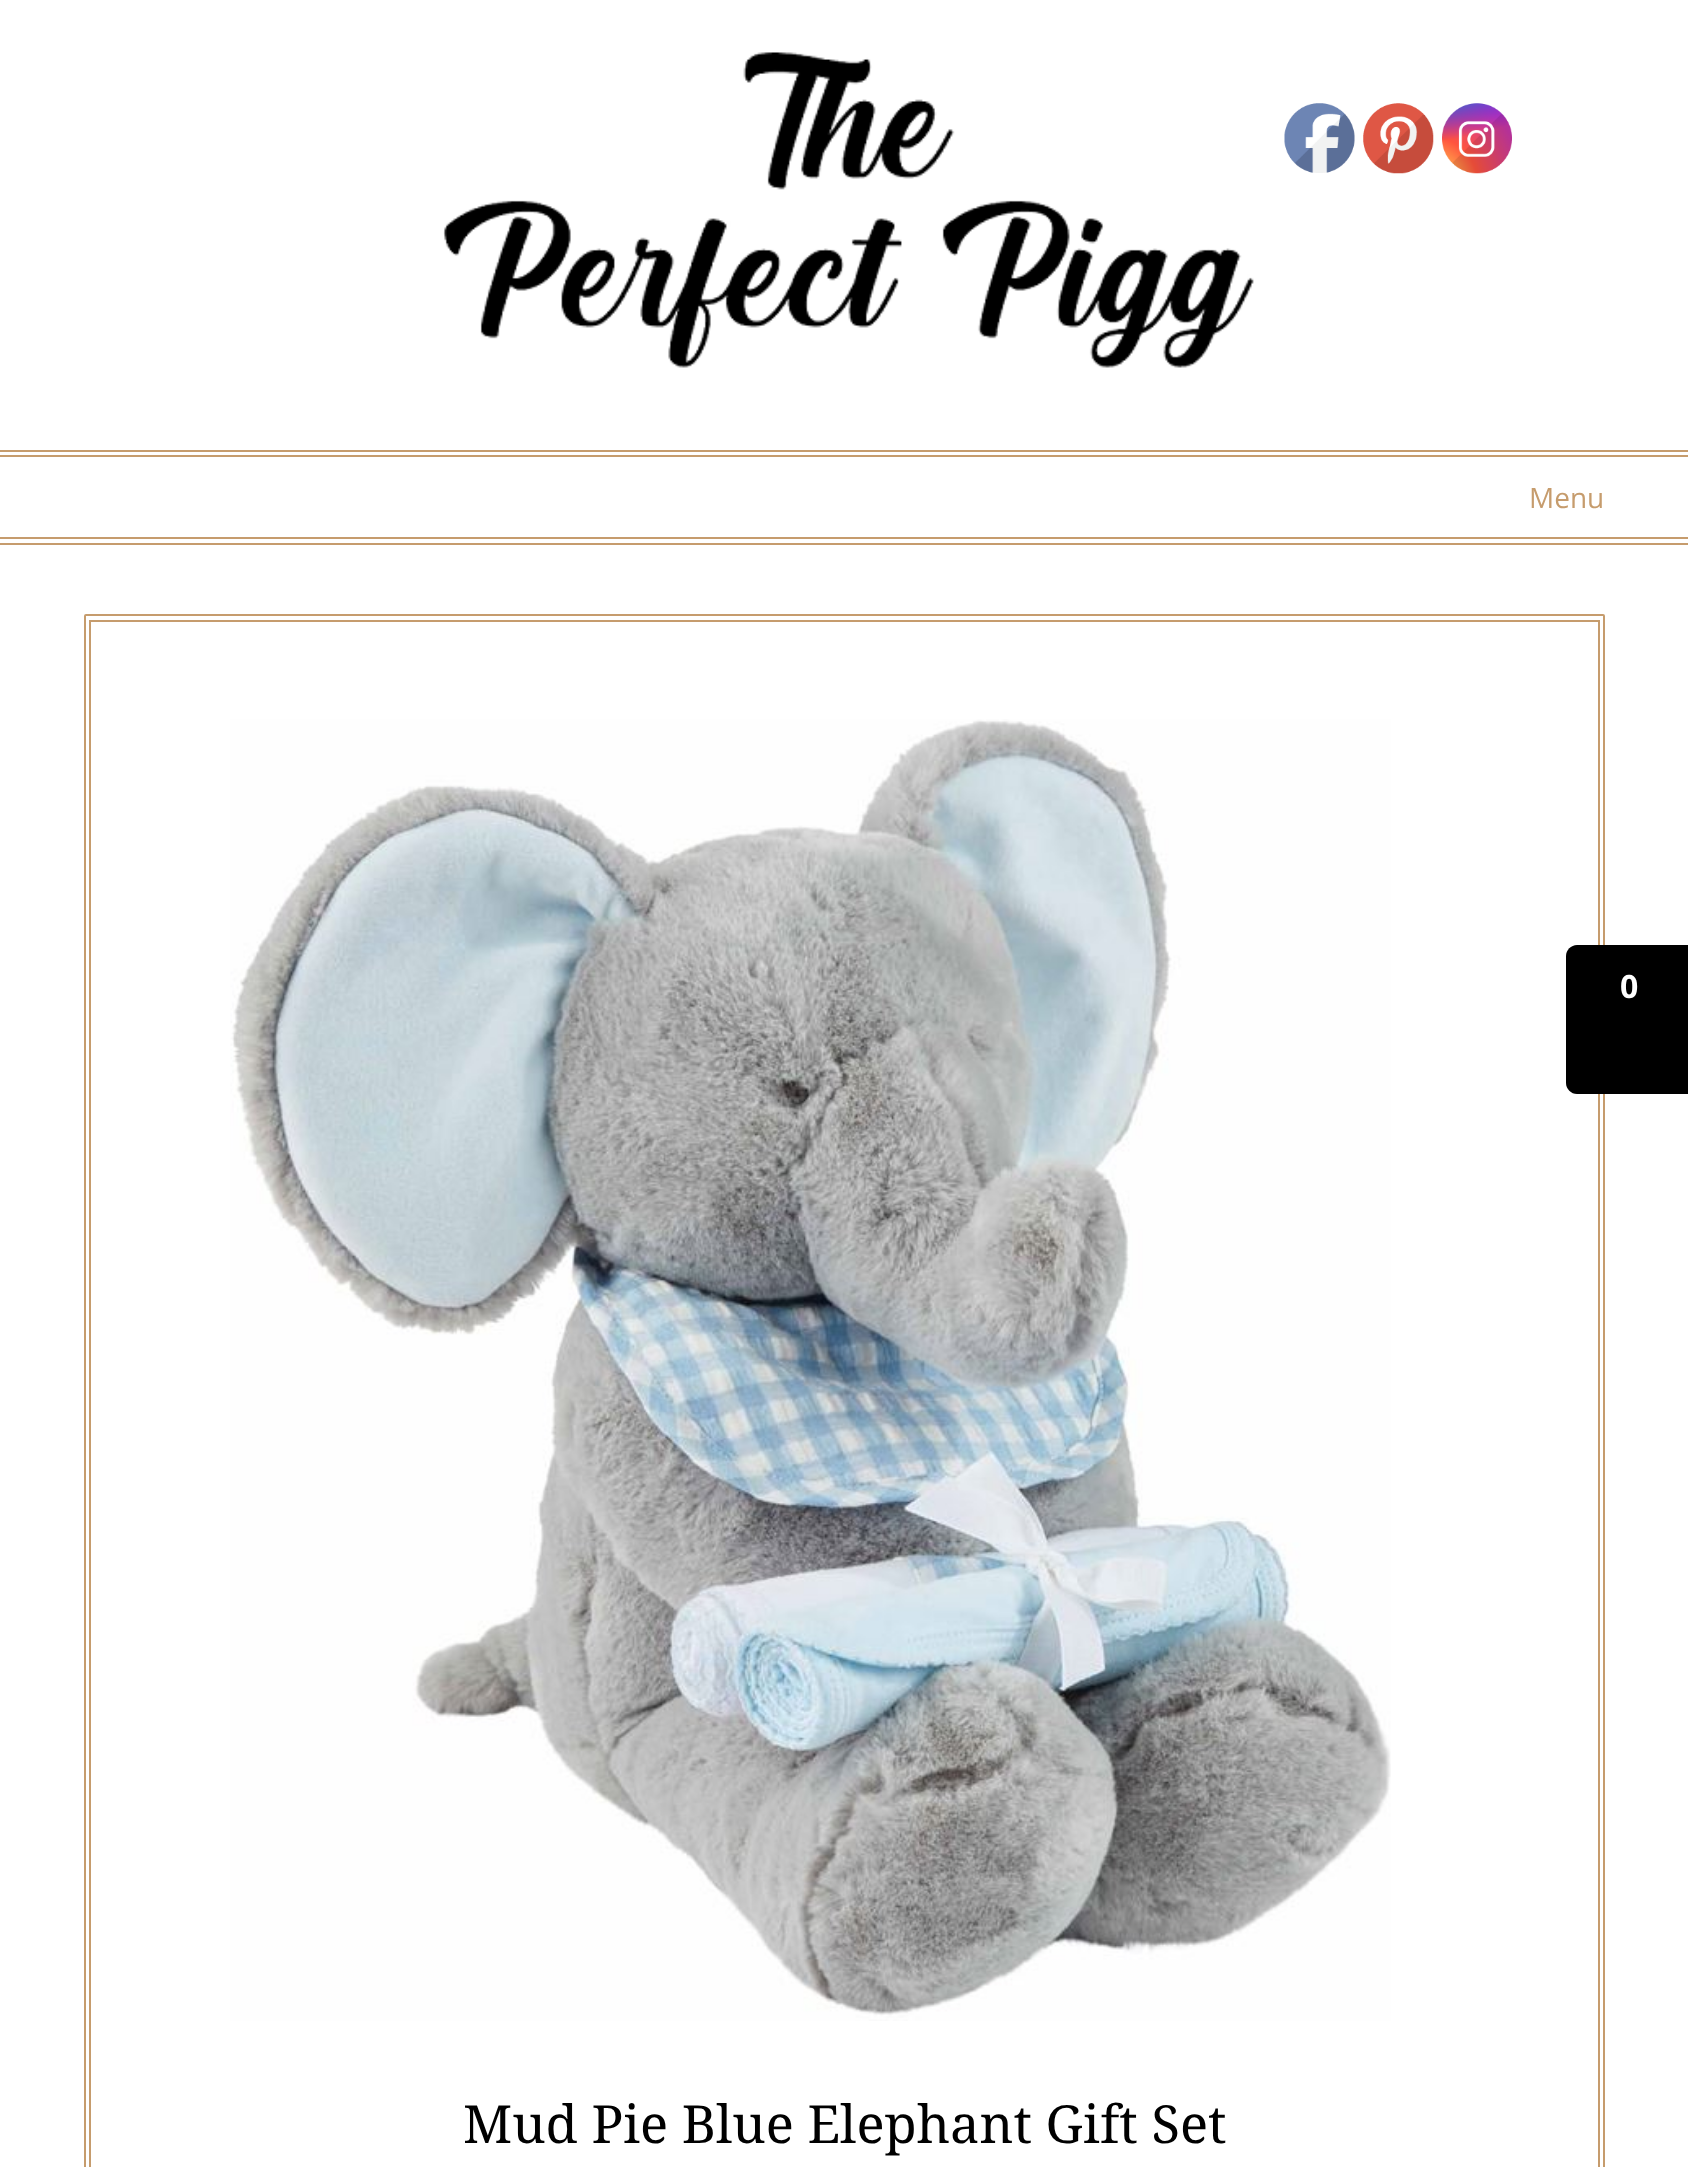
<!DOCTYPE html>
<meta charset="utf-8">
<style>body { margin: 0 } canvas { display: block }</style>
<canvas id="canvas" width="1688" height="2167"></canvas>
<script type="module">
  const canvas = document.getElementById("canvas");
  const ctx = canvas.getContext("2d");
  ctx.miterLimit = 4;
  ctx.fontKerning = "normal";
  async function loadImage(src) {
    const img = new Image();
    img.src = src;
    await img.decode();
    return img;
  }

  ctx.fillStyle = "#ffffff";
  ctx.fillRect(0, 0, 1688, 2167);
  ctx.drawImage(await loadImage("img1.png"), 1284, 103, 71, 70);
  ctx.drawImage(await loadImage("img2.png"), 1363, 103, 71, 71);
  ctx.drawImage(await loadImage("img3.png"), 1442, 103, 70, 71);
  ctx.drawImage(await loadImage("img4.png"), 443, 52, 811, 316);
  ctx.fillStyle = "#c69c6d";
  ctx.fillRect(0, 450, 1688, 2);
  ctx.fillRect(0, 455, 1688, 2);
  ctx.fillRect(0, 537, 1688, 2);
  ctx.fillRect(0, 543, 1688, 2);
  ctx.font = "28px Open Sans";
  ctx.fillText("Menu", 1529, 508);
  ctx.beginPath();
  ctx.roundRect(85, 615, 1519, 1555, 1);
  ctx.strokeStyle = "#c69c6d";
  ctx.lineWidth = 2;
  ctx.stroke();
  ctx.strokeRect(90, 621, 1509, 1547);
  ctx.drawImage(await loadImage("img5.png"), 230, 719, 1161, 1302);
  ctx.font = "52.5px Noto Serif";
  ctx.fillStyle = "#000000";
  ctx.fillText("Mud Pie Blue Elephant Gift Set", 463, 2143);
  ctx.beginPath();
  ctx.moveTo(1577, 945);
  ctx.lineTo(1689, 945);
  ctx.lineTo(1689, 1094);
  ctx.lineTo(1577, 1094);
  ctx.bezierCurveTo(1571, 1094, 1566, 1089, 1566, 1083);
  ctx.lineTo(1566, 956);
  ctx.bezierCurveTo(1566, 950, 1571, 945, 1577, 945);
  ctx.closePath();
  ctx.fill();
  ctx.font = "bold 32px Open Sans";
  ctx.fillStyle = "#ffffff";
  ctx.fillText("0", 1620, 998);
</script>
